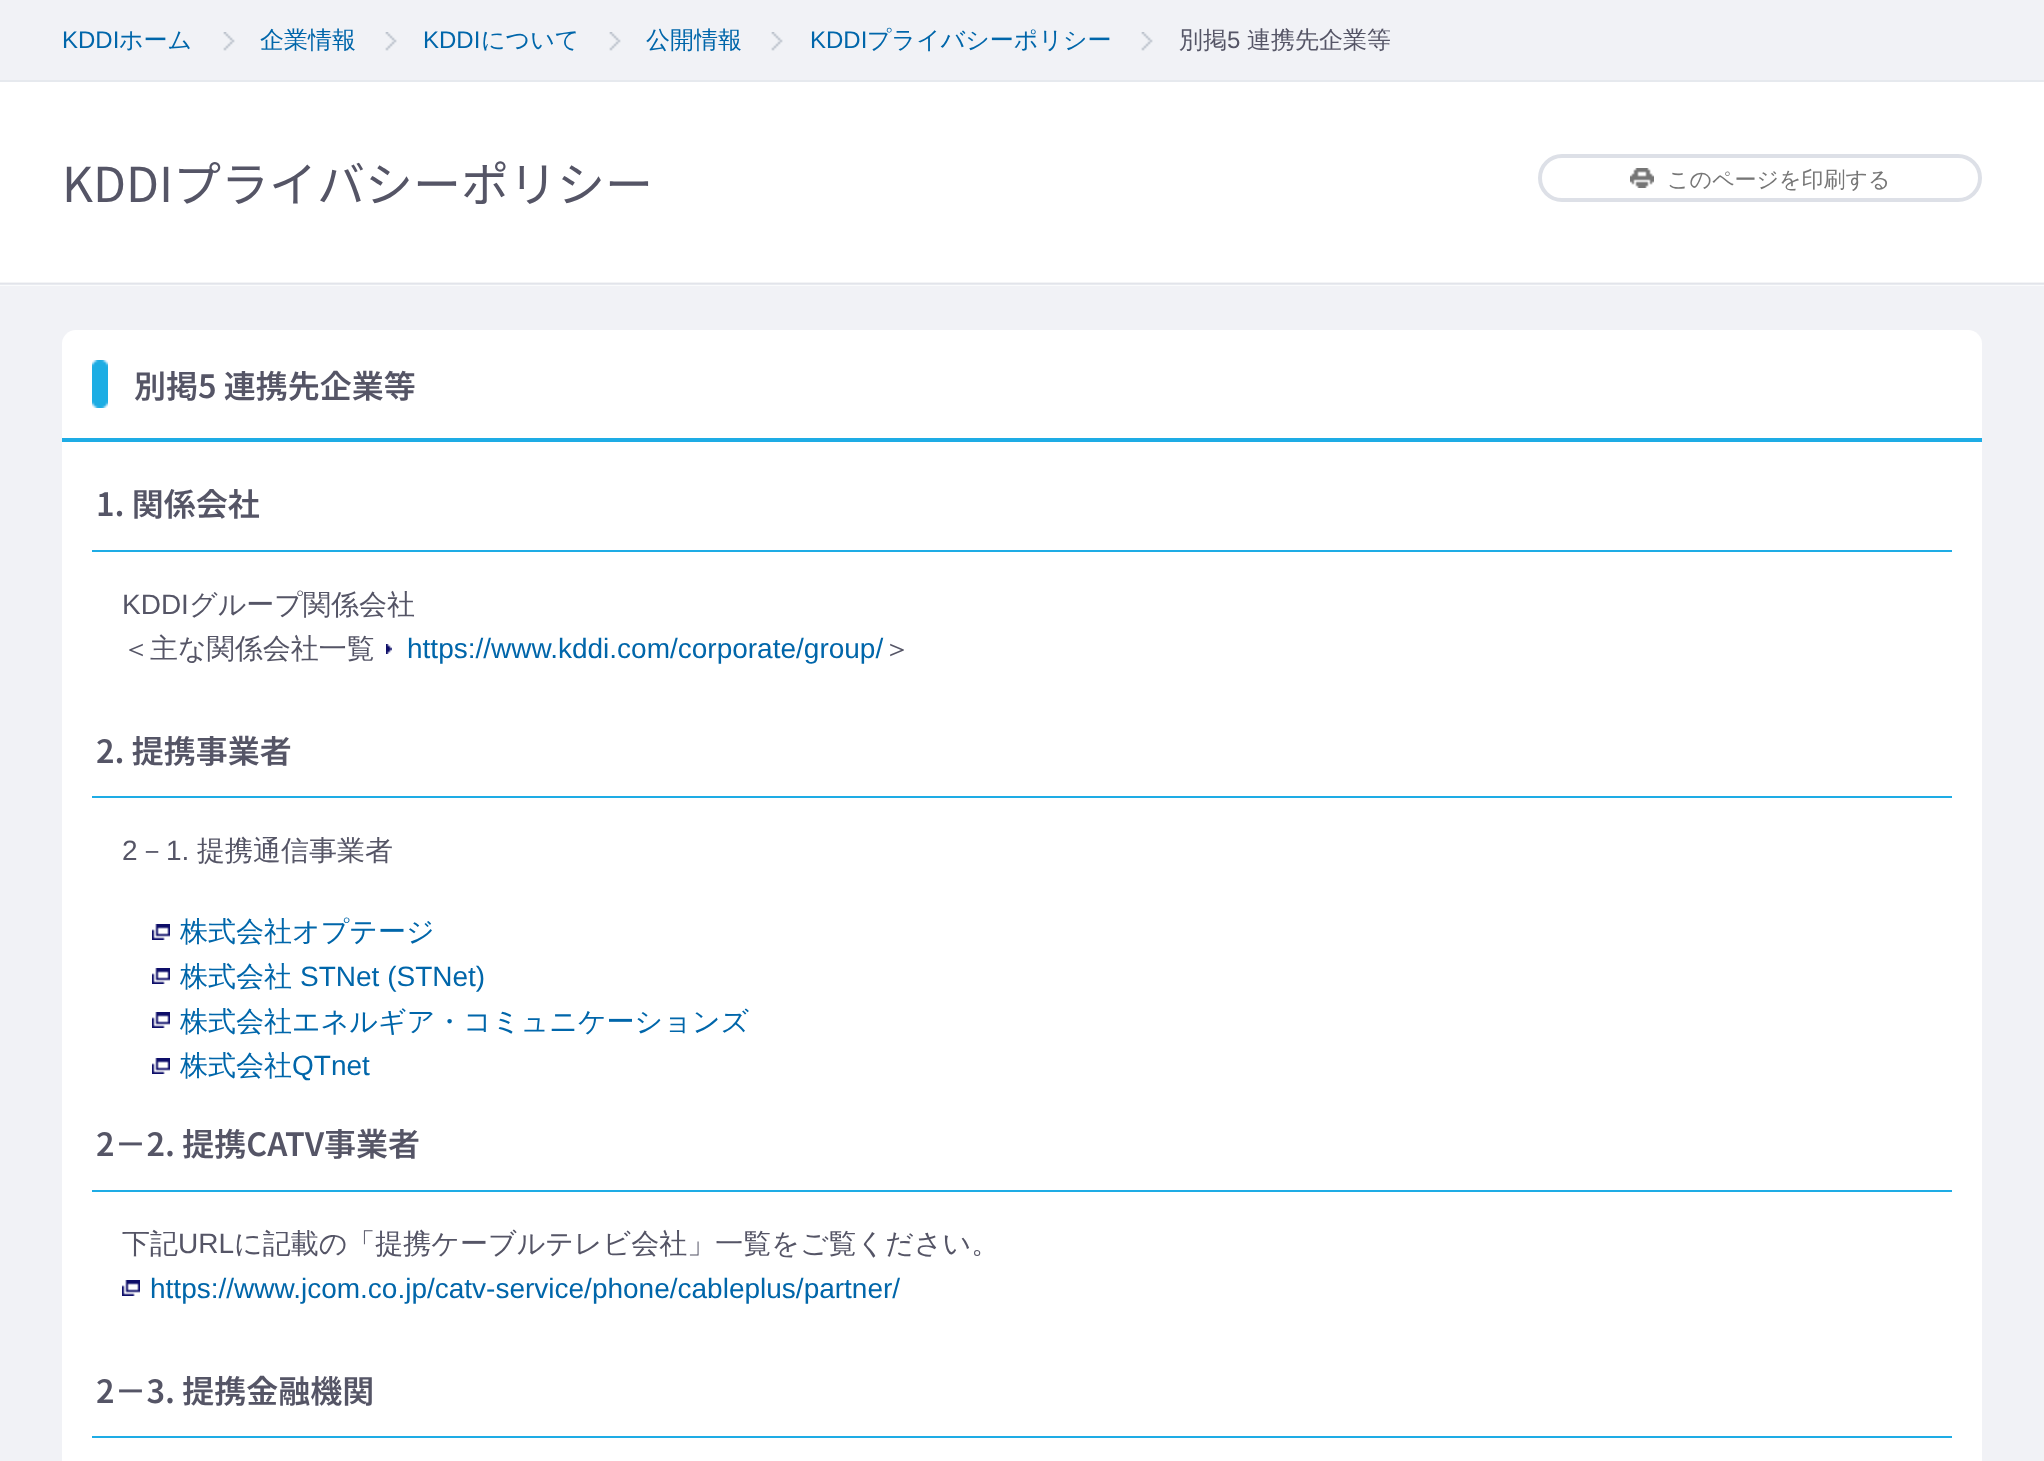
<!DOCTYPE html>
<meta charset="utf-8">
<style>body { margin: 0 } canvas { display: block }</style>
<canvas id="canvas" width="2044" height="1461"></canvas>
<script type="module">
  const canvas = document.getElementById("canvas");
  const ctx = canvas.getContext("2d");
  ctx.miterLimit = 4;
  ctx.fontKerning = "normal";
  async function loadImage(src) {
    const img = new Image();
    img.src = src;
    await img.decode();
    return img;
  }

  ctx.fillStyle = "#f1f2f6";
  ctx.fillRect(0, 0, 2044, 1461);
  ctx.fillStyle = "#e6e9ee";
  ctx.fillRect(0, 80, 2044, 2);
  ctx.font = "24px Liberation Sans";
  ctx.fillStyle = "#0066aa";
  ctx.fillText("KDDI", 62, 48);
  ctx.font = "500 24px WenQuanYi Zen Hei";
  ctx.fillText("ホーム", 119, 48);
  ctx.drawImage(await loadImage("img1.png"), 223, 32, 12, 19);
  ctx.fillText("企業情報", 260, 48);
  ctx.drawImage(await loadImage("img1.png"), 385, 32, 12, 19);
  ctx.font = "24px Liberation Sans";
  ctx.fillText("KDDI", 423, 48);
  ctx.font = "500 24px WenQuanYi Zen Hei";
  ctx.fillText("について", 481, 48);
  ctx.drawImage(await loadImage("img1.png"), 609, 32, 12, 19);
  ctx.fillText("公開情報", 646, 48);
  ctx.drawImage(await loadImage("img1.png"), 771, 32, 12, 19);
  ctx.font = "24px Liberation Sans";
  ctx.fillText("KDDI", 810, 48);
  ctx.font = "500 24px WenQuanYi Zen Hei";
  ctx.fillText("プライバシーポリシー", 867, 48);
  ctx.drawImage(await loadImage("img1.png"), 1141, 32, 12, 19);
  ctx.fillStyle = "#555566";
  ctx.fillText("別掲", 1179, 48);
  ctx.font = "24px Liberation Sans";
  ctx.fillText("5", 1227, 48);
  ctx.font = "500 24px WenQuanYi Zen Hei";
  ctx.fillText("連携先企業等", 1247, 48);
  ctx.drawImage(await loadImage("img2.png"), 0, 82, 2044, 204);
  ctx.font = "100 48px Noto Sans JP";
  ctx.fillText("KDDIプライバシーポリシー", 62, 202);
  ctx.beginPath();
  ctx.roundRect(1540, 156, 440, 44, 22);
  ctx.strokeStyle = "#dde0e7";
  ctx.lineWidth = 4;
  ctx.stroke();
  ctx.drawImage(await loadImage("img3.png"), 1630, 168, 24, 20);
  ctx.font = "500 22px WenQuanYi Zen Hei";
  ctx.fillStyle = "#767676";
  ctx.fillText("このページを印刷する", 1667, 187);
  ctx.fillStyle = "#ffffff";
  ctx.beginPath();
  ctx.roundRect(62, 330, 1920, 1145, 14);
  ctx.fill();
  ctx.fillStyle = "#1eace5";
  ctx.fillRect(62, 438, 1920, 4);
  ctx.drawImage(await loadImage("img4.png"), 92, 360, 16, 48);
  ctx.font = "600 32px Noto Sans JP";
  ctx.fillStyle = "#555566";
  ctx.fillText("別掲5 連携先企業等", 134, 398);
  ctx.fillStyle = "#1eace5";
  ctx.fillRect(92, 550, 1860, 2);
  ctx.fillStyle = "#555566";
  ctx.fillText("1. 関係会社", 96, 516);
  ctx.font = "28px Liberation Sans";
  ctx.fillText("KDDI", 122, 614);
  ctx.font = "500 28px WenQuanYi Zen Hei";
  ctx.fillText("グループ関係会社", 189, 614);
  ctx.fillText("＜主な関係会社一覧", 122, 658);
  ctx.drawImage(await loadImage("img5.png"), 386, 644, 6, 10);
  ctx.font = "28px Liberation Sans";
  ctx.fillStyle = "#0066aa";
  ctx.fillText("https://www.kddi.com/corporate/group/", 407, 658);
  ctx.font = "500 28px WenQuanYi Zen Hei";
  ctx.fillStyle = "#555566";
  ctx.fillText("＞", 883, 658);
  ctx.fillStyle = "#1eace5";
  ctx.fillRect(92, 796, 1860, 2);
  ctx.font = "600 32px Noto Sans JP";
  ctx.fillStyle = "#555566";
  ctx.fillText("2. 提携事業者", 96, 763);
  ctx.font = "28px Liberation Sans";
  ctx.fillText("2", 122, 860);
  ctx.font = "500 28px WenQuanYi Zen Hei";
  ctx.fillText("－", 138, 860);
  ctx.font = "28px Liberation Sans";
  ctx.fillText("1.", 166, 860);
  ctx.font = "500 28px WenQuanYi Zen Hei";
  ctx.fillText("提携通信事業者", 197, 860);
  ctx.drawImage(await loadImage("img6.png"), 152, 924, 18, 16);
  ctx.fillStyle = "#0066aa";
  ctx.fillText("株式会社オプテージ", 180, 941);
  ctx.drawImage(await loadImage("img6.png"), 152, 968, 18, 16);
  ctx.fillText("株式会社", 180, 986);
  ctx.font = "28px Liberation Sans";
  ctx.fillText("STNet (STNet)", 300, 986);
  ctx.drawImage(await loadImage("img6.png"), 152, 1012, 18, 16);
  ctx.font = "500 28px WenQuanYi Zen Hei";
  ctx.fillText("株式会社エネルギア・コミュニケーションズ", 180, 1031);
  ctx.drawImage(await loadImage("img6.png"), 152, 1058, 18, 16);
  ctx.fillText("株式会社", 180, 1075);
  ctx.font = "28px Liberation Sans";
  ctx.fillText("QTnet", 292, 1075);
  ctx.fillStyle = "#1eace5";
  ctx.fillRect(92, 1190, 1860, 2);
  ctx.font = "600 32px Noto Sans JP";
  ctx.fillStyle = "#555566";
  ctx.fillText("2－2. 提携CATV事業者", 96, 1156);
  ctx.font = "500 28px WenQuanYi Zen Hei";
  ctx.fillText("下記", 122, 1253);
  ctx.font = "28px Liberation Sans";
  ctx.fillText("URL", 178, 1253);
  ctx.font = "500 28px WenQuanYi Zen Hei";
  ctx.fillText("に記載の「提携ケーブルテレビ会社」一覧をご覧ください。", 234, 1253);
  ctx.drawImage(await loadImage("img6.png"), 122, 1280, 18, 16);
  ctx.font = "28px Liberation Sans";
  ctx.fillStyle = "#0066aa";
  ctx.fillText("https://www.jcom.co.jp/catv-service/phone/cableplus/partner/", 150, 1298);
  ctx.fillStyle = "#1eace5";
  ctx.fillRect(92, 1436, 1860, 2);
  ctx.font = "600 32px Noto Sans JP";
  ctx.fillStyle = "#555566";
  ctx.fillText("2－3. 提携金融機関", 96, 1403);
</script>
